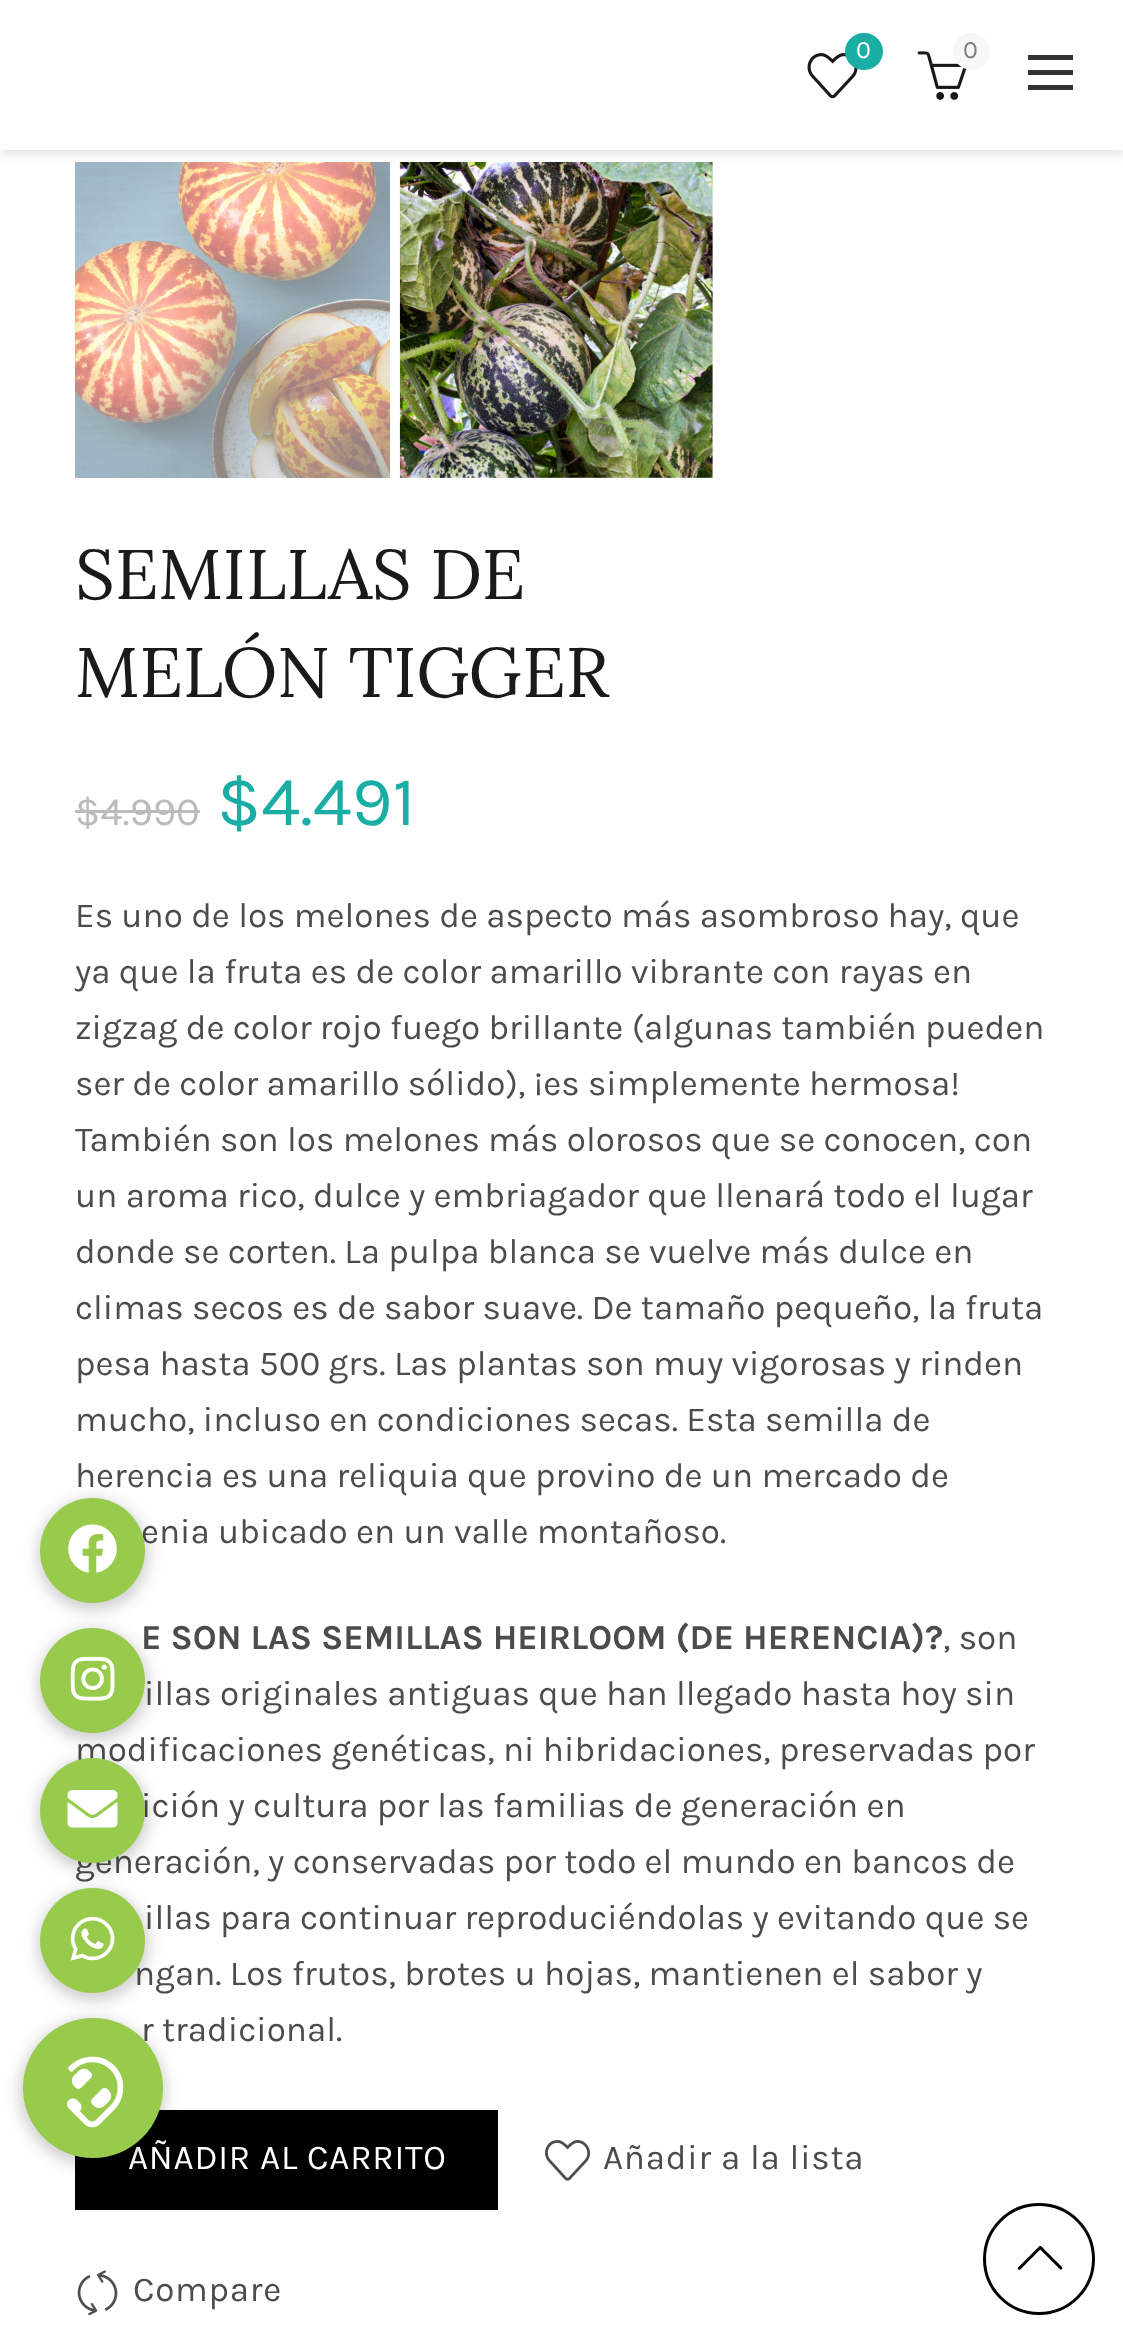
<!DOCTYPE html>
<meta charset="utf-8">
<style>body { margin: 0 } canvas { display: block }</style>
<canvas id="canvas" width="1123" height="2345"></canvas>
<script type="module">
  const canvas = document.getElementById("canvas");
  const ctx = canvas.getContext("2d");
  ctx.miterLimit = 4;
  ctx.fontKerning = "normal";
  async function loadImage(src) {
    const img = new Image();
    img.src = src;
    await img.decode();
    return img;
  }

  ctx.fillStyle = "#ffffff";
  ctx.fillRect(0, 0, 1123, 2345);
  ctx.drawImage(await loadImage("img3.png"), 75, 162, 315, 316);
  ctx.drawImage(await loadImage("img4.png"), 399, 162, 314, 316);
  ctx.fillStyle = "rgba(190, 190, 190, 0.5)";
  ctx.filter = "blur(6px)";
  ctx.beginPath();
  ctx.rect(0, 3, 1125, 150);
  ctx.fill();
  ctx.filter = "none";
  ctx.fillStyle = "#ffffff";
  ctx.fillRect(0, 0, 1123, 150);
  ctx.drawImage(await loadImage("img1.png"), 807, 53, 51, 46);
  ctx.fillStyle = "#1aada3";
  ctx.beginPath();
  ctx.roundRect(845, 33, 38, 37, 18.5);
  ctx.fill();
  ctx.font = "25px Karla";
  ctx.fillStyle = "#ffffff";
  ctx.fillText("0", 856, 58);
  ctx.drawImage(await loadImage("img2.png"), 917, 51, 50, 49);
  ctx.fillStyle = "#f7f7f7";
  ctx.beginPath();
  ctx.arc(971.5, 51.5, 18.5, 0, Math.PI * 2);
  ctx.fill();
  ctx.fillStyle = "#7e7e7e";
  ctx.fillText("0", 963, 58);
  ctx.fillStyle = "#333333";
  ctx.fillRect(1028, 70, 45, 5);
  ctx.fillRect(1028, 55, 45, 5);
  ctx.fillRect(1028, 85, 45, 5);
  ctx.font = "70px Lora";
  ctx.fillStyle = "#1b1919";
  ctx.fillText("SEMILLAS DE", 75, 599);
  ctx.fillText("MELÓN TIGGER", 75, 697);
  ctx.font = "40px Karla";
  ctx.fillStyle = "#bbbbbb";
  ctx.fillText("$4.990", 75, 825);
  ctx.fillRect(75, 810, 125, 3);
  ctx.font = "70px Karla";
  ctx.fillStyle = "#1aada3";
  ctx.fillText("$4.491", 217, 825);
  ctx.font = "35px Karla";
  ctx.fillStyle = "#4c4c4c";
  ctx.fillText("Es uno de los melones de aspecto más asombroso hay, que", 75, 927);
  ctx.fillText("ya que la fruta es de color amarillo vibrante con rayas en", 75, 983);
  ctx.fillText("zigzag de color rojo fuego brillante (algunas también pueden", 75, 1039);
  ctx.fillText("ser de color amarillo sólido), ¡es simplemente hermosa!", 75, 1095);
  ctx.fillText("También son los melones más olorosos que se conocen, con", 75, 1151);
  ctx.fillText("un aroma rico, dulce y embriagador que llenará todo el lugar", 75, 1207);
  ctx.fillText("donde se corten. La pulpa blanca se vuelve más dulce en", 75, 1263);
  ctx.fillText("climas secos es de sabor suave. De tamaño pequeño, la fruta", 75, 1319);
  ctx.fillText("pesa hasta 500 grs. Las plantas son muy vigorosas y rinden", 75, 1375);
  ctx.fillText("mucho, incluso en condiciones secas. Esta semilla de", 75, 1431);
  ctx.fillText("herencia es una reliquia que provino de un mercado de", 75, 1487);
  ctx.fillText("enia ubicado en un valle montañoso.", 141, 1543);
  ctx.font = "bold 35px Karla";
  ctx.fillText("E SON LAS SEMILLAS HEIRLOOM (DE HERENCIA)?", 141, 1649);
  ctx.font = "35px Karla";
  ctx.fillText(", son", 943, 1649);
  ctx.fillText("illas originales antiguas que han llegado hasta hoy sin", 144, 1705);
  ctx.fillText("modificaciones genéticas, ni hibridaciones, preservadas por", 75, 1761);
  ctx.fillText("ición y cultura por las familias de generación en", 141, 1817);
  ctx.fillText("generación, y conservadas por todo el mundo en bancos de", 75, 1873);
  ctx.fillText("illas para continuar reproduciéndolas y evitando que se", 144, 1929);
  ctx.fillText("ngan. Los frutos, brotes u hojas, mantienen el sabor y", 134, 1985);
  ctx.fillText("r tradicional.", 141, 2041);
  ctx.fillStyle = "#000000";
  ctx.fillRect(75, 2110, 423, 100);
  ctx.letterSpacing = "0.75px";
  ctx.fillStyle = "#ffffff";
  ctx.fillText("AÑADIR AL CARRITO", 128, 2169);
  ctx.drawImage(await loadImage("img5.png"), 545, 2140, 46, 41);
  ctx.fillStyle = "#4c4c4c";
  ctx.fillText("Añadir a la lista", 603, 2169);
  ctx.drawImage(await loadImage("img6.png"), 77, 2270, 41, 46);
  ctx.fillText("Compare", 133, 2301);
  ctx.fillStyle = "rgba(0, 0, 0, 0.2)";
  ctx.filter = "blur(7.5px)";
  ctx.beginPath();
  ctx.roundRect(38, 1890, 110, 110, 55);
  ctx.fill();
  ctx.filter = "none";
  ctx.fillStyle = "#98cb4c";
  ctx.beginPath();
  ctx.arc(92.5, 1940.5, 52.5, 0, Math.PI * 2);
  ctx.fill();
  ctx.fillStyle = "rgba(0, 0, 0, 0.2)";
  ctx.filter = "blur(7.5px)";
  ctx.beginPath();
  ctx.roundRect(38, 1760, 110, 110, 55);
  ctx.fill();
  ctx.filter = "none";
  ctx.fillStyle = "#98cb4c";
  ctx.beginPath();
  ctx.arc(92.5, 1810.5, 52.5, 0, Math.PI * 2);
  ctx.fill();
  ctx.fillStyle = "rgba(0, 0, 0, 0.2)";
  ctx.filter = "blur(7.5px)";
  ctx.beginPath();
  ctx.roundRect(38, 1630, 110, 110, 55);
  ctx.fill();
  ctx.filter = "none";
  ctx.fillStyle = "#98cb4c";
  ctx.beginPath();
  ctx.arc(92.5, 1680.5, 52.5, 0, Math.PI * 2);
  ctx.fill();
  ctx.fillStyle = "rgba(0, 0, 0, 0.2)";
  ctx.filter = "blur(7.5px)";
  ctx.beginPath();
  ctx.roundRect(38, 1500, 110, 110, 55);
  ctx.fill();
  ctx.filter = "none";
  ctx.fillStyle = "#98cb4c";
  ctx.beginPath();
  ctx.arc(92.5, 1550.5, 52.5, 0, Math.PI * 2);
  ctx.fill();
  ctx.drawImage(await loadImage("img7.png"), 68, 1524, 49, 49);
  ctx.drawImage(await loadImage("img8.png"), 70, 1656, 45, 45);
  ctx.drawImage(await loadImage("img9.png"), 67, 1790, 51, 38);
  ctx.drawImage(await loadImage("img10.png"), 70, 1916, 45, 45);
  ctx.fillStyle = "rgba(0, 0, 0, 0.2)";
  ctx.filter = "blur(7.5px)";
  ctx.beginPath();
  ctx.roundRect(20, 2020, 145, 145, 72.5);
  ctx.fill();
  ctx.filter = "none";
  ctx.fillStyle = "#98cb4c";
  ctx.beginPath();
  ctx.arc(93, 2088, 70, 0, Math.PI * 2);
  ctx.fill();
  ctx.drawImage(await loadImage("img11.png"), 67, 2056, 57, 72);
  ctx.beginPath();
  ctx.arc(1039, 2259, 54.5, 0, Math.PI * 2);
  ctx.strokeStyle = "#000000";
  ctx.lineWidth = 3;
  ctx.stroke();
  ctx.drawImage(await loadImage("img12.png"), 1017, 2246, 46, 24);
</script>
